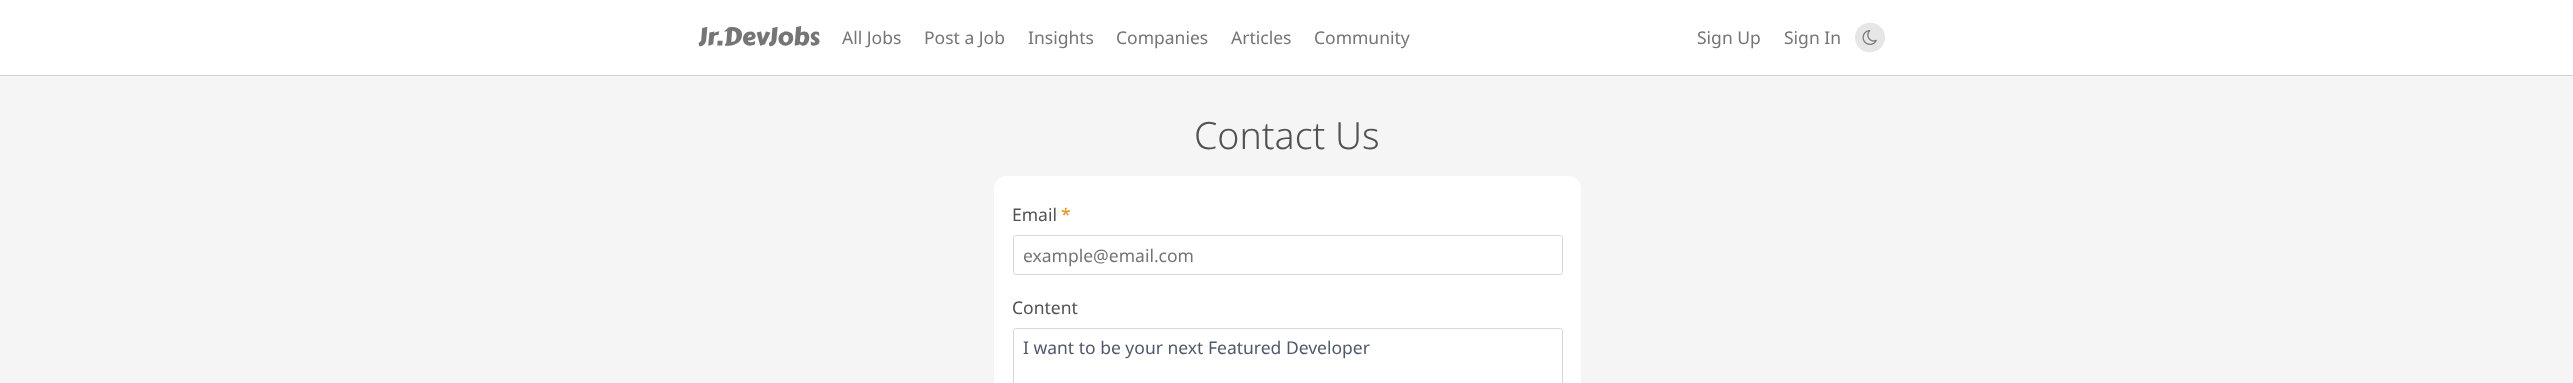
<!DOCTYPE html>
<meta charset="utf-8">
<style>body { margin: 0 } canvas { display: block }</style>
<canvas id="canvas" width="2573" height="383"></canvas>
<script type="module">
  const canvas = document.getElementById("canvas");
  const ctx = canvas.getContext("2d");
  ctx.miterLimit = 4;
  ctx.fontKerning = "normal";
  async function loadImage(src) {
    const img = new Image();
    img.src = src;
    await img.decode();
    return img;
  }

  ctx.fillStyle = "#f5f5f5";
  ctx.fillRect(0, 0, 2573, 383);
  ctx.fillStyle = "rgba(0, 0, 0, 0.15)";
  ctx.filter = "blur(0.5px)";
  ctx.beginPath();
  ctx.rect(0, 1, 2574, 75);
  ctx.fill();
  ctx.filter = "none";
  ctx.fillStyle = "#ffffff";
  ctx.fillRect(0, 0, 2573, 75);
  ctx.font = "25px Carter One";
  ctx.fillStyle = "#757575";
  ctx.fillText("Jr.DevJobs", 698, 45);
  ctx.font = "17.5px Noto Sans";
  ctx.fillText("All Jobs", 842, 44);
  ctx.fillText("Post a Job", 924, 44);
  ctx.fillText("Insights", 1028, 44);
  ctx.fillText("Companies", 1116, 44);
  ctx.fillText("Articles", 1231, 44);
  ctx.fillText("Community", 1314, 44);
  ctx.fillText("Sign Up", 1697, 44);
  ctx.fillText("Sign In", 1784, 44);
  ctx.fillStyle = "#e6e6e6";
  ctx.beginPath();
  ctx.moveTo(1883, 30);
  ctx.bezierCurveTo(1884.5, 32.5, 1885, 35.5, 1885, 38.5);
  ctx.bezierCurveTo(1884, 53, 1864.5, 57.5, 1857, 45);
  ctx.bezierCurveTo(1855.5, 42.5, 1855, 39.5, 1855, 36.5);
  ctx.bezierCurveTo(1856, 22, 1875.5, 17.5, 1883, 30);
  ctx.closePath();
  ctx.fill();
  ctx.drawImage(await loadImage("img1.png"), 1862, 30, 15, 15);
  ctx.font = "300 37.5px Noto Sans";
  ctx.fillStyle = "#525252";
  ctx.fillText("Contact Us", 1194, 149);
  ctx.fillStyle = "#ffffff";
  ctx.beginPath();
  ctx.roundRect(994, 176, 587, 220, 13);
  ctx.fill();
  ctx.font = "17.5px Noto Sans";
  ctx.fillStyle = "#525252";
  ctx.fillText("Email", 1012, 221);
  ctx.fillStyle = "#f18d05";
  ctx.fillText("*", 1061, 221);
  ctx.beginPath();
  ctx.roundRect(1013.5, 235.5, 549, 39, 2);
  ctx.strokeStyle = "#d8d8d8";
  ctx.stroke();
  ctx.fillStyle = "#757575";
  ctx.fillText("example@email.com", 1023, 262);
  ctx.fillStyle = "#525252";
  ctx.fillText("Content", 1012, 314);
  ctx.beginPath();
  ctx.roundRect(1013.5, 328.5, 549, 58, 2);
  ctx.stroke();
  ctx.fillStyle = "#50596c";
  ctx.fillText("I want to be your next Featured Developer", 1023, 354);
</script>
